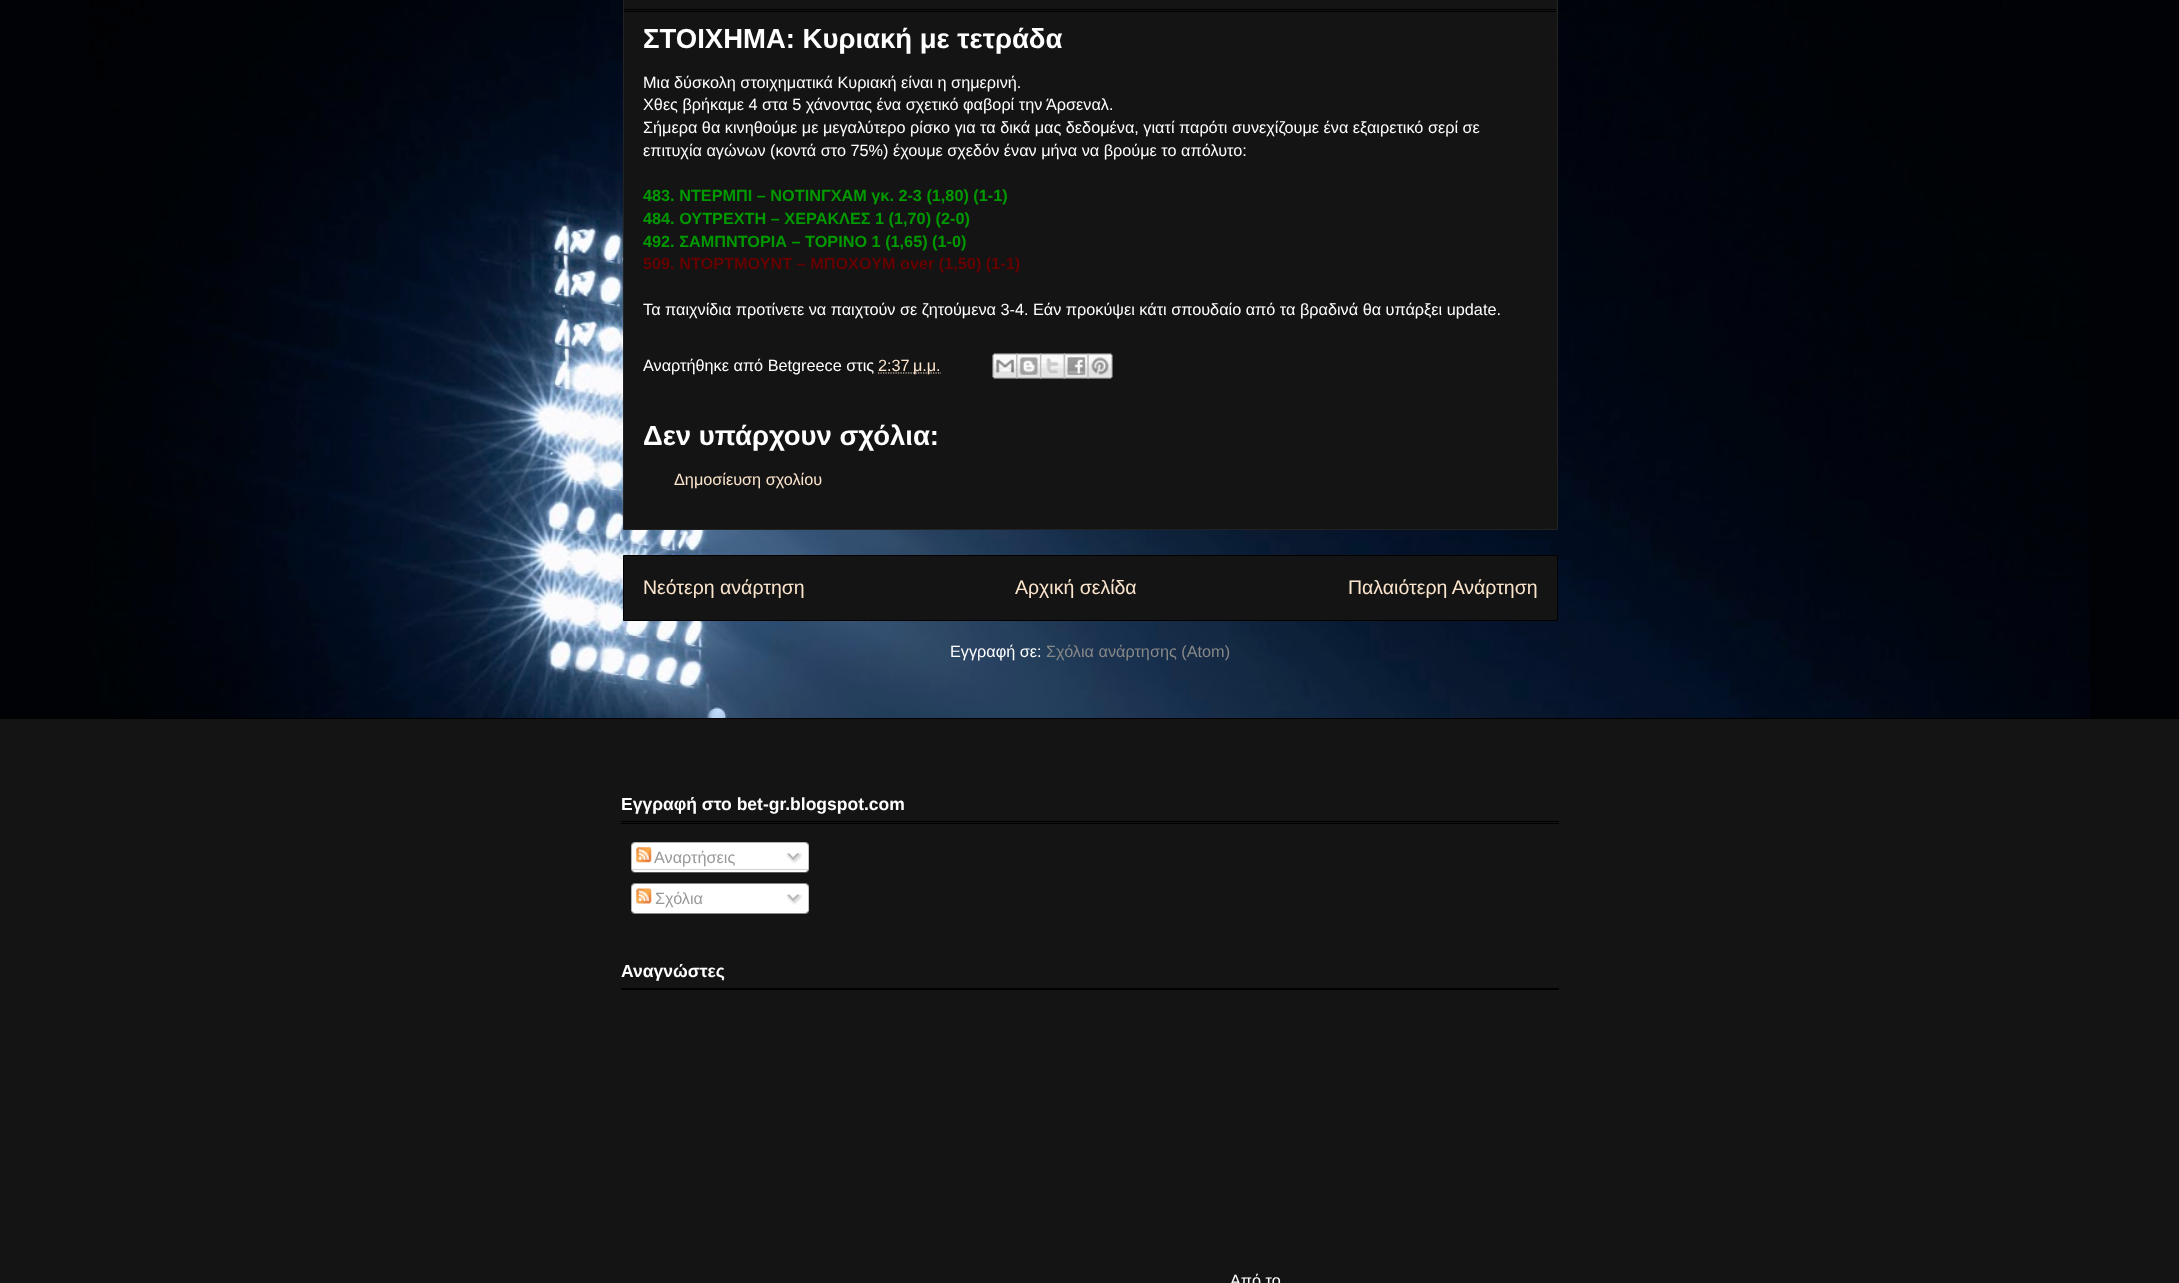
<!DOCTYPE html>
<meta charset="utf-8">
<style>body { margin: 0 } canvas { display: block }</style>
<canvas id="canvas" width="2179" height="1283"></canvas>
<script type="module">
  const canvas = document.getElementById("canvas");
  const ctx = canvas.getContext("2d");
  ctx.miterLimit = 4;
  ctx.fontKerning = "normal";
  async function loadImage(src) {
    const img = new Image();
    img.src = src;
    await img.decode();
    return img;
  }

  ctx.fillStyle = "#010206";
  ctx.fillRect(0, 0, 2179, 1283);
  ctx.drawImage(await loadImage("img1.png"), 90, 0, 2000, 718);
  ctx.fillStyle = "#141414";
  ctx.beginPath();
  ctx.rect(623.5, -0.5, 934, 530);
  ctx.fill();
  ctx.strokeStyle = "#222222";
  ctx.stroke();
  ctx.fillStyle = "#000000";
  ctx.fillRect(624, 9, 932, 1);
  ctx.fillRect(624, 11, 932, 1);
  ctx.font = "bold 27.5px Liberation Sans";
  ctx.fillStyle = "#ffffff";
  ctx.fillText("ΣΤΟΙΧΗΜΑ: Κυριακή με τετράδα", 643, 48);
  ctx.font = "16.25px Liberation Sans";
  ctx.fillText("Μια δύσκολη στοιχηματικά Κυριακή είναι η σημερινή.", 643, 88);
  ctx.fillText("Χθες βρήκαμε 4 στα 5 χάνοντας ένα σχετικό φαβορί την Άρσεναλ.", 643, 110);
  ctx.fillText("Σήμερα θα κινηθούμε με μεγαλύτερο ρίσκο για τα δικά μας δεδομένα, γιατί παρότι συνεχίζουμε ένα εξαιρετικό σερί σε", 643, 133);
  ctx.fillText("επιτυχία αγώνων (κοντά στο 75%) έχουμε σχεδόν έναν μήνα να βρούμε το απόλυτο:", 643, 156);
  ctx.font = "bold 16.25px Liberation Sans";
  ctx.fillStyle = "#009900";
  ctx.fillText("483. ΝΤΕΡΜΠΙ – ΝΟΤΙΝΓΧΑΜ γκ. 2-3 (1,80) (1-1)", 643, 201);
  ctx.fillText("484. ΟΥΤΡΕΧΤΗ – ΧΕΡΑΚΛΕΣ 1 (1,70) (2-0)", 643, 224);
  ctx.fillText("492. ΣΑΜΠΝΤΟΡΙΑ – ΤΟΡΙΝΟ 1 (1,65) (1-0)", 643, 247);
  ctx.fillStyle = "#660000";
  ctx.fillText("509. ΝΤΟΡΤΜΟΥΝΤ – ΜΠΟΧΟΥΜ over (1,50) (1-1)", 643, 269);
  ctx.font = "16.25px Liberation Sans";
  ctx.fillStyle = "#ffffff";
  ctx.fillText("Τα παιχνίδια προτίνετε να παιχτούν σε ζητούμενα 3-4. Εάν προκύψει κάτι σπουδαίο από τα βραδινά θα υπάρξει update.", 643, 315);
  ctx.fillText("Αναρτήθηκε από Betgreece στις", 643, 371);
  ctx.beginPath();
  ctx.moveTo(878, 373);
  ctx.lineTo(941, 373);
  ctx.strokeStyle = "#fce5cd";
  ctx.lineWidth = 1.2;
  ctx.setLineDash([1.25, 1.25]);
  ctx.stroke();
  ctx.fillStyle = "#fce5cd";
  ctx.fillText("2:37 μ.μ.", 878, 371);
  ctx.drawImage(await loadImage("img2.png"), 992, 353, 26, 26);
  ctx.drawImage(await loadImage("img3.png"), 1016, 353, 26, 26);
  ctx.drawImage(await loadImage("img4.png"), 1040, 353, 25, 26);
  ctx.drawImage(await loadImage("img5.png"), 1063, 353, 26, 26);
  ctx.drawImage(await loadImage("img6.png"), 1087, 353, 26, 26);
  ctx.font = "bold 27.5px Liberation Sans";
  ctx.fillStyle = "#ffffff";
  ctx.fillText("Δεν υπάρχουν σχόλια:", 643, 445);
  ctx.font = "16.25px Liberation Sans";
  ctx.fillStyle = "#fce5cd";
  ctx.fillText("Δημοσίευση σχολίου", 674, 485);
  ctx.fillStyle = "#141414";
  ctx.beginPath();
  ctx.rect(623.5, 555.5, 934, 65);
  ctx.fill();
  ctx.strokeStyle = "#000000";
  ctx.lineWidth = 1;
  ctx.setLineDash([]);
  ctx.stroke();
  ctx.font = "19.5px Liberation Sans";
  ctx.fillStyle = "#fce5cd";
  ctx.fillText("Νεότερη ανάρτηση", 643, 594);
  ctx.fillText("Αρχική σελίδα", 1015, 594);
  ctx.fillText("Παλαιότερη Ανάρτηση", 1348, 594);
  ctx.font = "16.25px Liberation Sans";
  ctx.fillStyle = "#ffffff";
  ctx.fillText("Εγγραφή σε:", 950, 657);
  ctx.fillStyle = "#888888";
  ctx.fillText("Σχόλια ανάρτησης (Atom)", 1046, 657);
  ctx.fillStyle = "#141414";
  ctx.fillRect(0, 719, 2179, 564);
  ctx.fillStyle = "#000000";
  ctx.fillRect(0, 718, 2179, 1);
  ctx.fillRect(621, 821, 938, 1);
  ctx.font = "bold 17.5px Liberation Sans";
  ctx.fillStyle = "#ffffff";
  ctx.fillText("Εγγραφή στο bet-gr.blogspot.com", 621, 810);
  ctx.fillStyle = "#000000";
  ctx.fillRect(621, 823, 938, 1);
  ctx.drawImage(await loadImage("img7.png"), 631, 842, 178, 28);
  ctx.drawImage(await loadImage("img8.png"), 636, 847, 16, 16);
  ctx.font = "16.25px Liberation Sans";
  ctx.fillStyle = "#999999";
  ctx.fillText("Αναρτήσεις", 654, 863);
  ctx.drawImage(await loadImage("img9.png"), 786, 852, 17, 12);
  ctx.drawImage(await loadImage("img10.png"), 631, 869, 178, 4);
  ctx.drawImage(await loadImage("img11.png"), 631, 883, 178, 28);
  ctx.drawImage(await loadImage("img12.png"), 636, 888, 16, 16);
  ctx.fillText("Σχόλια", 655, 904);
  ctx.drawImage(await loadImage("img13.png"), 786, 894, 17, 11);
  ctx.drawImage(await loadImage("img14.png"), 631, 911, 178, 3);
  ctx.font = "bold 17.5px Liberation Sans";
  ctx.fillStyle = "#ffffff";
  ctx.fillText("Αναγνώστες", 621, 977);
  ctx.fillStyle = "#000000";
  ctx.fillRect(621, 988, 938, 2);
  ctx.font = "16.25px Liberation Sans";
  ctx.fillStyle = "#ffffff";
  ctx.fillText("Από το", 1230, 1286);
</script>
